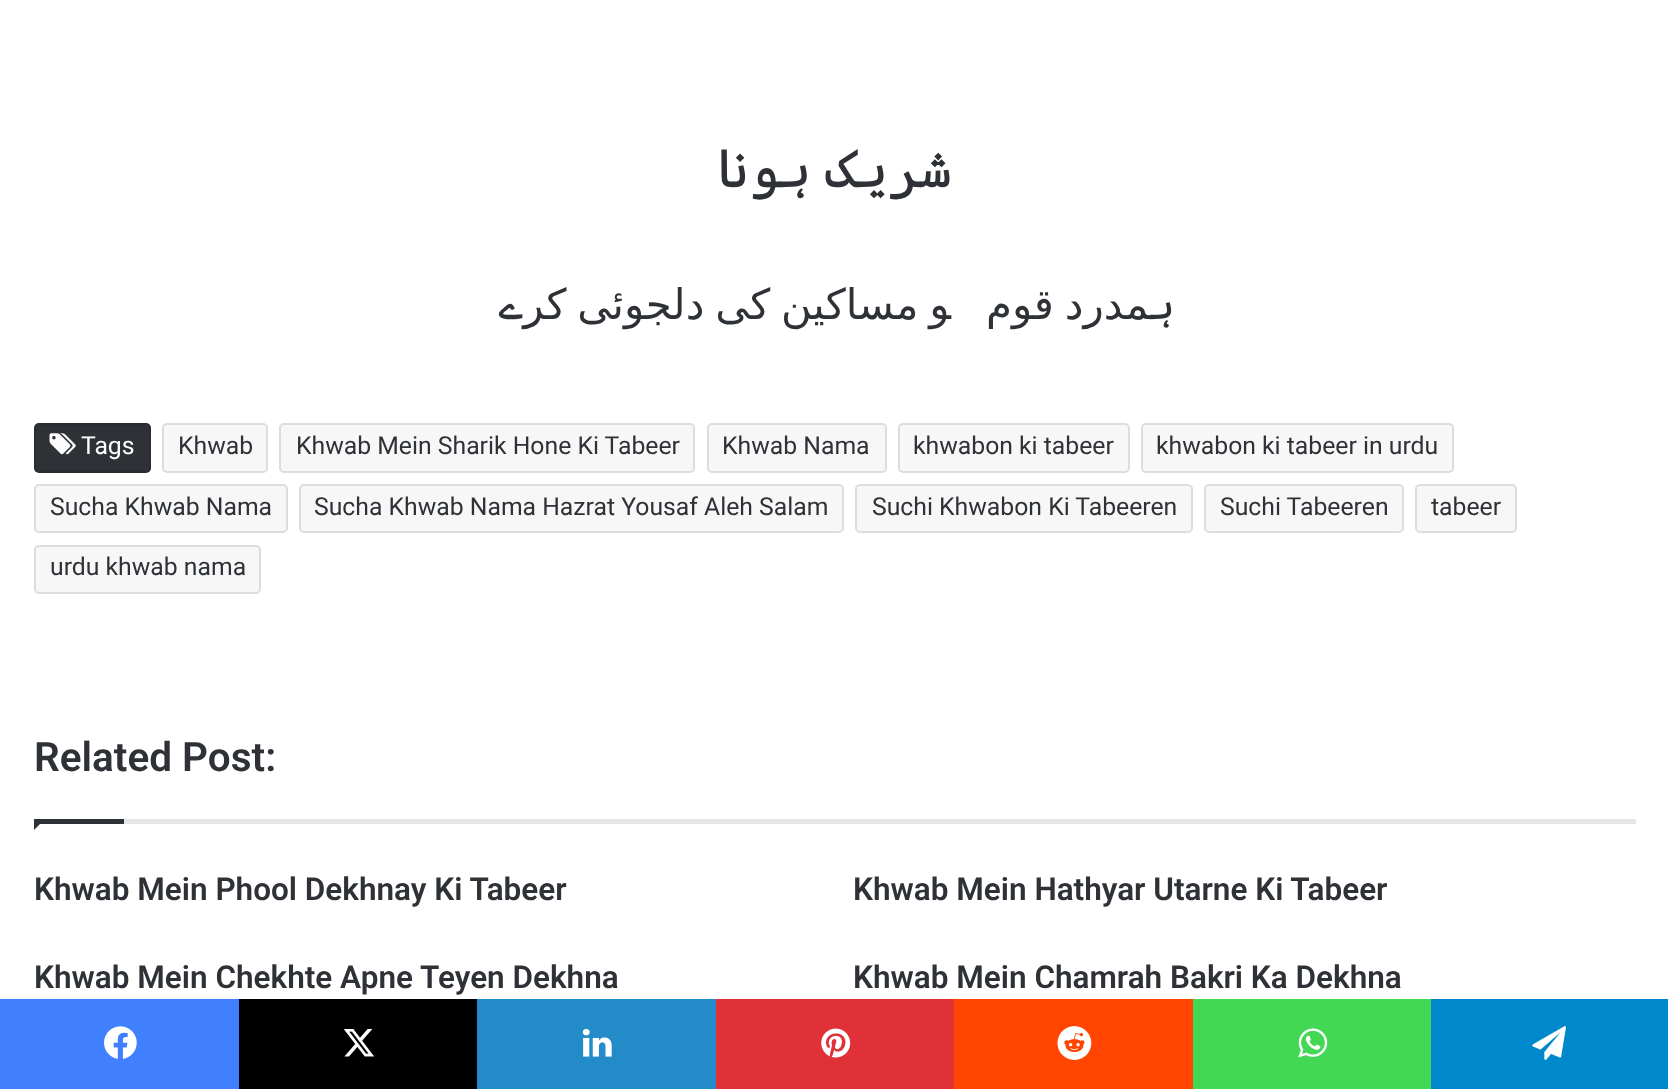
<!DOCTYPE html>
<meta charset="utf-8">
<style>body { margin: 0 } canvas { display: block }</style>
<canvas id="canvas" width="1668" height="1089"></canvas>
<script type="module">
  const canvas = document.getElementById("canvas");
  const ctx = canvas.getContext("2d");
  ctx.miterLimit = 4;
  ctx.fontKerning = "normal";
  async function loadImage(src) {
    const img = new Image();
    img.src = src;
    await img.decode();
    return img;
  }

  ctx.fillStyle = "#ffffff";
  ctx.fillRect(0, 0, 1668, 1089);
  ctx.wordSpacing = "-18px";
  ctx.direction = "rtl";
  ctx.font = "54px Cascadia Code";
  ctx.fillStyle = "#2e3136";
  ctx.fillText("شریک ہونا", 952, 187);
  ctx.wordSpacing = "0px";
  ctx.font = "42px Cascadia Code";
  ctx.fillText("ے", 523, 319);
  ctx.wordSpacing = "-2.5px";
  ctx.font = "42px DejaVu Sans";
  ctx.fillText("‍و مساکین کی دلجوئی کر", 951, 319);
  ctx.fillText("‍مدرد قوم", 1150, 319);
  ctx.wordSpacing = "0px";
  ctx.font = "42px Cascadia Code";
  ctx.fillText("ہ‍", 1175, 319);
  ctx.fillStyle = "#f7f7f7";
  ctx.beginPath();
  ctx.roundRect(162, 423, 106, 50, 5);
  ctx.fill();
  ctx.beginPath();
  ctx.roundRect(163, 424, 104, 48, 4);
  ctx.strokeStyle = "rgba(3, 3, 3, 0.1)";
  ctx.lineWidth = 2;
  ctx.stroke();
  ctx.direction = "ltr";
  ctx.font = "24.75px Roboto";
  ctx.fillStyle = "#2e3136";
  ctx.fillText("Khwab", 178, 454);
  ctx.fillStyle = "#f7f7f7";
  ctx.beginPath();
  ctx.roundRect(279, 423, 416, 50, 5);
  ctx.fill();
  ctx.beginPath();
  ctx.roundRect(280, 424, 414, 48, 4);
  ctx.stroke();
  ctx.fillStyle = "#2e3136";
  ctx.fillText("Khwab Mein Sharik Hone Ki Tabeer", 296, 454);
  ctx.fillStyle = "#f7f7f7";
  ctx.beginPath();
  ctx.roundRect(707, 423, 180, 50, 5);
  ctx.fill();
  ctx.beginPath();
  ctx.roundRect(708, 424, 178, 48, 4);
  ctx.stroke();
  ctx.fillStyle = "#2e3136";
  ctx.fillText("Khwab Nama", 722, 454);
  ctx.fillStyle = "#f7f7f7";
  ctx.beginPath();
  ctx.roundRect(898, 423, 232, 50, 5);
  ctx.fill();
  ctx.beginPath();
  ctx.roundRect(899, 424, 230, 48, 4);
  ctx.stroke();
  ctx.fillStyle = "#2e3136";
  ctx.fillText("khwabon ki tabeer", 913, 454);
  ctx.fillStyle = "#f7f7f7";
  ctx.beginPath();
  ctx.roundRect(1141, 423, 313, 50, 5);
  ctx.fill();
  ctx.beginPath();
  ctx.roundRect(1142, 424, 311, 48, 4);
  ctx.stroke();
  ctx.fillStyle = "#2e3136";
  ctx.fillText("khwabon ki tabeer in urdu", 1156, 454);
  ctx.fillStyle = "#f7f7f7";
  ctx.beginPath();
  ctx.roundRect(34, 484, 254, 49, 5);
  ctx.fill();
  ctx.beginPath();
  ctx.roundRect(35, 485, 252, 47, 4);
  ctx.stroke();
  ctx.fillStyle = "#2e3136";
  ctx.fillText("Sucha Khwab Nama", 50, 515);
  ctx.fillStyle = "#f7f7f7";
  ctx.beginPath();
  ctx.roundRect(299, 484, 545, 49, 5);
  ctx.fill();
  ctx.beginPath();
  ctx.roundRect(300, 485, 543, 47, 4);
  ctx.stroke();
  ctx.fillStyle = "#2e3136";
  ctx.fillText("Sucha Khwab Nama Hazrat Yousaf Aleh Salam", 314, 515);
  ctx.fillStyle = "#f7f7f7";
  ctx.beginPath();
  ctx.roundRect(855, 484, 338, 49, 5);
  ctx.fill();
  ctx.beginPath();
  ctx.roundRect(856, 485, 336, 47, 4);
  ctx.stroke();
  ctx.fillStyle = "#2e3136";
  ctx.fillText("Suchi Khwabon Ki Tabeeren", 872, 515);
  ctx.fillStyle = "#f7f7f7";
  ctx.beginPath();
  ctx.roundRect(1204, 484, 200, 49, 5);
  ctx.fill();
  ctx.beginPath();
  ctx.roundRect(1205, 485, 198, 47, 4);
  ctx.stroke();
  ctx.fillStyle = "#2e3136";
  ctx.fillText("Suchi Tabeeren", 1220, 515);
  ctx.fillStyle = "#f7f7f7";
  ctx.beginPath();
  ctx.roundRect(1415, 484, 102, 49, 5);
  ctx.fill();
  ctx.beginPath();
  ctx.roundRect(1416, 485, 100, 47, 4);
  ctx.stroke();
  ctx.fillStyle = "#2e3136";
  ctx.fillText("tabeer", 1431, 515);
  ctx.fillStyle = "#f7f7f7";
  ctx.beginPath();
  ctx.roundRect(34, 545, 227, 49, 5);
  ctx.fill();
  ctx.beginPath();
  ctx.roundRect(35, 546, 225, 47, 4);
  ctx.stroke();
  ctx.fillStyle = "#2e3136";
  ctx.fillText("urdu khwab nama", 50, 575);
  ctx.beginPath();
  ctx.roundRect(34, 423, 117, 50, 5);
  ctx.fill();
  ctx.beginPath();
  ctx.roundRect(35, 424, 115, 48, 4);
  ctx.stroke();
  ctx.drawImage(await loadImage("img1.png"), 49, 433, 27, 22);
  ctx.fillStyle = "#ffffff";
  ctx.fillText("Tags", 81, 454);
  ctx.fillStyle = "#e6e6e6";
  ctx.fillRect(124, 819, 1512, 5);
  ctx.font = "600 40.5px Roboto";
  ctx.fillStyle = "#2e3136";
  ctx.fillText("Related Post:", 34, 771);
  ctx.beginPath();
  ctx.moveTo(34, 819);
  ctx.lineTo(45, 819);
  ctx.lineTo(34, 830);
  ctx.closePath();
  ctx.fill();
  ctx.fillRect(34, 819, 90, 5);
  ctx.font = "600 31.5px Roboto";
  ctx.fillText("Khwab Mein Phool Dekhnay Ki Tabeer", 34, 900);
  ctx.fillText("Khwab Mein Hathyar Utarne Ki Tabeer", 853, 900);
  ctx.fillText("Khwab Mein Chekhte Apne Teyen Dekhna", 34, 988);
  ctx.fillText("Khwab Mein Chamrah Bakri Ka Dekhna", 853, 988);
  ctx.fillStyle = "#4080ff";
  ctx.fillRect(0, 999, 239, 90);
  ctx.drawImage(await loadImage("img2.png"), 104, 1026, 33, 33);
  ctx.fillStyle = "#000000";
  ctx.fillRect(239, 999, 238, 90);
  ctx.drawImage(await loadImage("img3.png"), 343, 1029, 31, 28);
  ctx.fillStyle = "#238cc8";
  ctx.fillRect(477, 999, 239, 90);
  ctx.drawImage(await loadImage("img4.png"), 582, 1029, 30, 28);
  ctx.fillStyle = "#e13138";
  ctx.fillRect(716, 999, 238, 90);
  ctx.drawImage(await loadImage("img5.png"), 821, 1028, 30, 30);
  ctx.fillStyle = "#ff4500";
  ctx.fillRect(954, 999, 239, 90);
  ctx.drawImage(await loadImage("img6.png"), 1057, 1026, 35, 34);
  ctx.fillStyle = "#43d854";
  ctx.fillRect(1193, 999, 238, 90);
  ctx.drawImage(await loadImage("img7.png"), 1298, 1028, 30, 30);
  ctx.fillStyle = "#0088cc";
  ctx.fillRect(1431, 999, 237, 90);
  ctx.drawImage(await loadImage("img8.png"), 1532, 1026, 34, 34);
</script>
